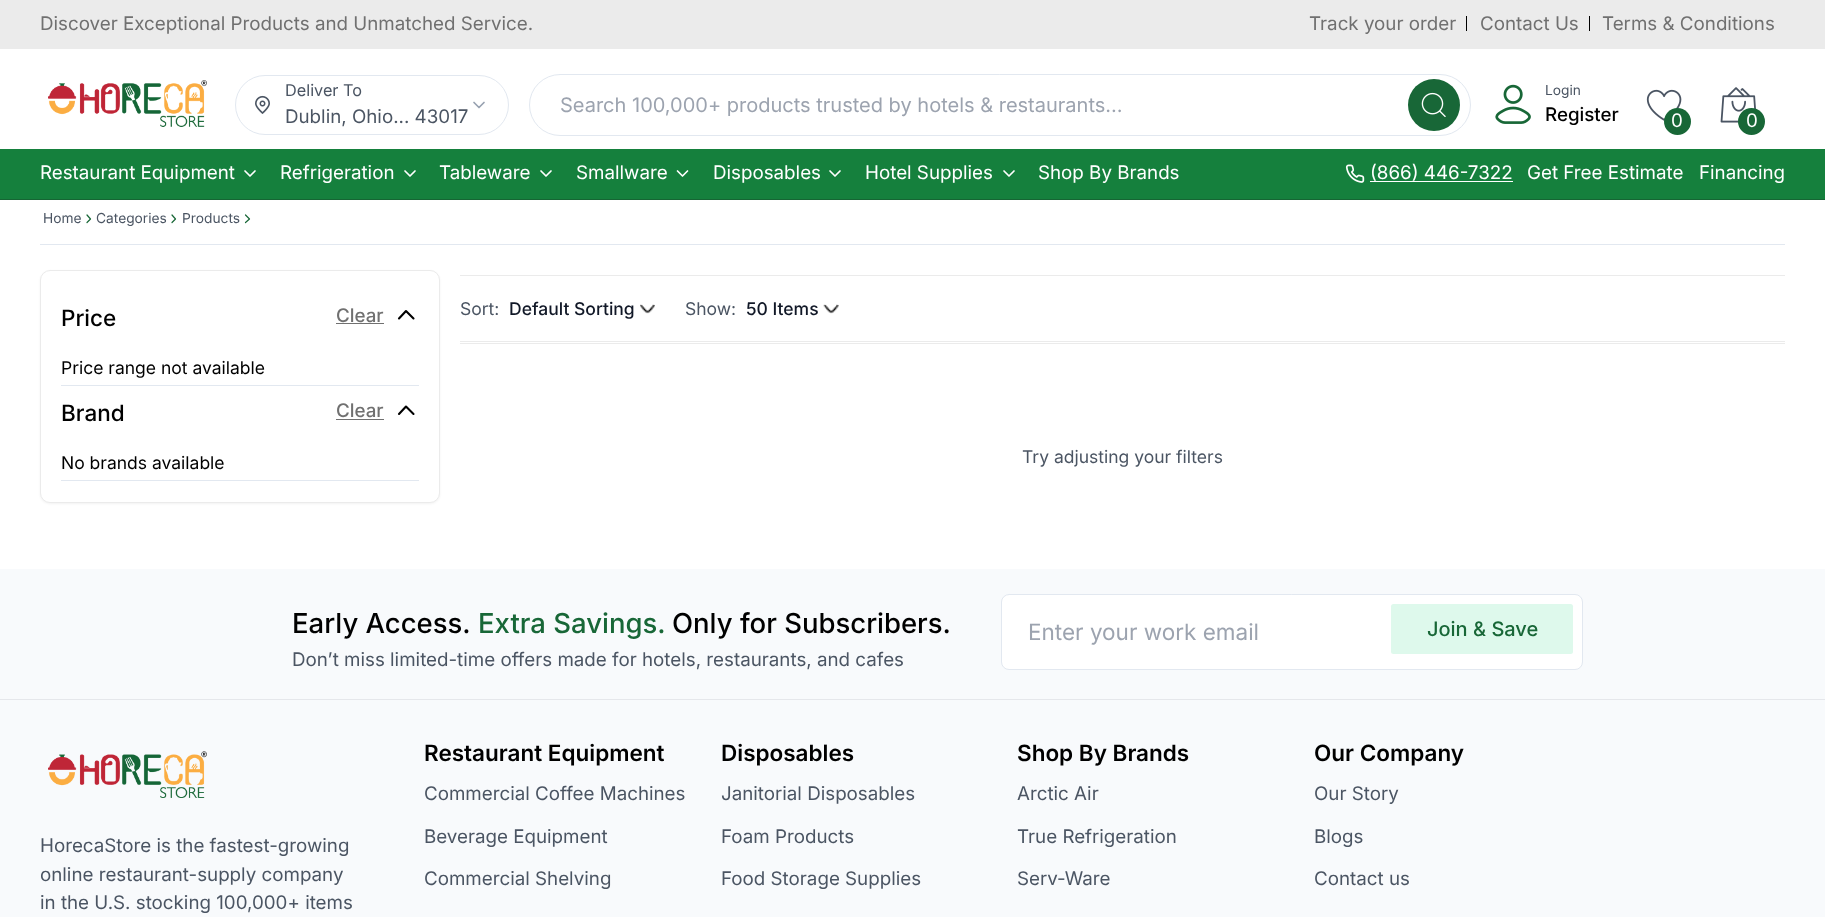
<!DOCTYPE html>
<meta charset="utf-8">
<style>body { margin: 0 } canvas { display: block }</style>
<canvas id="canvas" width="1825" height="917"></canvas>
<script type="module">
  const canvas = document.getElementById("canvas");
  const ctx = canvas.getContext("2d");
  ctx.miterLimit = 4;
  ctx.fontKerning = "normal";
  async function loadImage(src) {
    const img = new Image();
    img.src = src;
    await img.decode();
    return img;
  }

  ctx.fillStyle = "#ffffff";
  ctx.fillRect(0, 0, 1825, 917);
  ctx.fillStyle = "#ebebeb";
  ctx.fillRect(0, 0, 1825, 49);
  ctx.font = "18.75px Inter";
  ctx.fillStyle = "#707070";
  ctx.fillText("Discover Exceptional Products and Unmatched Service.", 40, 30);
  ctx.fillText("Track your order", 1309, 30);
  ctx.fillStyle = "#000000";
  ctx.fillRect(1466, 16, 1, 15);
  ctx.fillStyle = "#707070";
  ctx.fillText("Contact Us", 1480, 30);
  ctx.fillStyle = "#000000";
  ctx.fillRect(1589, 16, 1, 15);
  ctx.fillStyle = "#707070";
  ctx.fillText("Terms & Conditions", 1602, 30);
  ctx.drawImage(await loadImage("img1.png"), 48, 80, 159, 47);
  ctx.beginPath();
  ctx.roundRect(235.5, 75.5, 273, 59, 29.5);
  ctx.strokeStyle = "#e2e8f0";
  ctx.stroke();
  ctx.drawImage(await loadImage("img2.png"), 255, 95, 15, 19);
  ctx.font = "16.25px Inter";
  ctx.fillStyle = "#4b5563";
  ctx.fillText("Deliver To", 285, 96);
  ctx.font = "18.75px Inter";
  ctx.fillText("Dublin, Ohio... 43017", 285, 123);
  ctx.beginPath();
  ctx.moveTo(474, 102.5);
  ctx.lineTo(479, 107.5);
  ctx.lineTo(484, 102.5);
  ctx.strokeStyle = "#98a2b1";
  ctx.lineWidth = 1.7;
  ctx.lineCap = "round";
  ctx.lineJoin = "round";
  ctx.stroke();
  ctx.beginPath();
  ctx.roundRect(529.5, 74.5, 941, 61, 30.5);
  ctx.strokeStyle = "#e2e8f0";
  ctx.lineWidth = 1;
  ctx.lineJoin = "miter";
  ctx.stroke();
  ctx.font = "20px Inter";
  ctx.fillStyle = "#9ca3af";
  ctx.fillText("Search 100,000+ products trusted by hotels & restaurants…", 560, 112);
  ctx.fillStyle = "#186737";
  ctx.beginPath();
  ctx.arc(1434, 105, 26, 0, Math.PI * 2);
  ctx.fill();
  ctx.drawImage(await loadImage("img3.png"), 1421, 92, 25, 25);
  ctx.drawImage(await loadImage("img4.png"), 1495, 84, 36, 40);
  ctx.font = "13.75px Inter";
  ctx.fillStyle = "#4b5563";
  ctx.fillText("Login", 1545, 95);
  ctx.font = "500 18.75px Inter";
  ctx.fillStyle = "#000000";
  ctx.fillText("Register", 1545, 121);
  ctx.drawImage(await loadImage("img5.png"), 1646, 89, 36, 32);
  ctx.fillStyle = "#186737";
  ctx.beginPath();
  ctx.arc(1677.5, 121.5, 13.5, 0, Math.PI * 2);
  ctx.fill();
  ctx.font = "18.75px Inter";
  ctx.fillStyle = "#ffffff";
  ctx.fillText("0", 1671, 127);
  ctx.drawImage(await loadImage("img6.png"), 1720, 87, 36, 36);
  ctx.fillStyle = "#186737";
  ctx.beginPath();
  ctx.arc(1751.5, 121.5, 13.5, 0, Math.PI * 2);
  ctx.fill();
  ctx.fillStyle = "#ffffff";
  ctx.fillText("0", 1746, 127);
  ctx.fillStyle = "#15803d";
  ctx.fillRect(0, 149, 1825, 50);
  ctx.fillStyle = "#166534";
  ctx.fillRect(0, 199, 1825, 1);
  ctx.fillStyle = "#ffffff";
  ctx.fillText("Restaurant Equipment", 40, 179);
  ctx.beginPath();
  ctx.moveTo(245, 171);
  ctx.lineTo(250, 176);
  ctx.lineTo(255, 171);
  ctx.strokeStyle = "#ffffff";
  ctx.lineWidth = 1.7;
  ctx.lineJoin = "round";
  ctx.stroke();
  ctx.fillText("Refrigeration", 280, 179);
  ctx.beginPath();
  ctx.moveTo(405, 171);
  ctx.lineTo(410, 176);
  ctx.lineTo(415, 171);
  ctx.stroke();
  ctx.fillText("Tableware", 439, 179);
  ctx.beginPath();
  ctx.moveTo(541, 171);
  ctx.lineTo(546, 176);
  ctx.lineTo(551, 171);
  ctx.stroke();
  ctx.fillText("Smallware", 576, 179);
  ctx.beginPath();
  ctx.moveTo(677.5, 171);
  ctx.lineTo(682.5, 176);
  ctx.lineTo(687.5, 171);
  ctx.stroke();
  ctx.fillText("Disposables", 713, 179);
  ctx.beginPath();
  ctx.moveTo(830, 171);
  ctx.lineTo(835, 176);
  ctx.lineTo(840, 171);
  ctx.stroke();
  ctx.fillText("Hotel Supplies", 865, 179);
  ctx.beginPath();
  ctx.moveTo(1004, 171);
  ctx.lineTo(1009, 176);
  ctx.lineTo(1014, 171);
  ctx.stroke();
  ctx.fillText("Shop By Brands", 1038, 179);
  ctx.drawImage(await loadImage("img7.png"), 1345, 164, 20, 19);
  ctx.fillText("(866) 446-7322", 1370, 179);
  ctx.fillRect(1370, 181, 143, 1);
  ctx.fillText("Get Free Estimate", 1527, 179);
  ctx.fillText("Financing", 1699, 179);
  ctx.font = "13.75px Inter";
  ctx.fillStyle = "#4b5563";
  ctx.fillText("Home", 43, 223);
  ctx.beginPath();
  ctx.moveTo(87, 222.5);
  ctx.lineTo(90.5, 219);
  ctx.lineTo(87, 215);
  ctx.strokeStyle = "#186737";
  ctx.lineWidth = 1.2;
  ctx.stroke();
  ctx.fillText("Categories", 96, 223);
  ctx.beginPath();
  ctx.moveTo(172, 222.5);
  ctx.lineTo(175.5, 219);
  ctx.lineTo(172, 215);
  ctx.stroke();
  ctx.fillText("Products", 182, 223);
  ctx.beginPath();
  ctx.moveTo(245.5, 222.5);
  ctx.lineTo(249.5, 219);
  ctx.lineTo(245.5, 215);
  ctx.stroke();
  ctx.fillStyle = "#e2e8f0";
  ctx.fillRect(40, 244, 1745, 1);
  ctx.fillStyle = "rgba(0, 0, 0, 0.05)";
  ctx.filter = "blur(1px)";
  ctx.beginPath();
  ctx.roundRect(40, 271, 400, 233, 10);
  ctx.fill();
  ctx.filter = "none";
  ctx.fillStyle = "#ffffff";
  ctx.beginPath();
  ctx.roundRect(40.5, 270.5, 399, 232, 9.5);
  ctx.fill();
  ctx.strokeStyle = "#ebebeb";
  ctx.lineWidth = 1;
  ctx.lineJoin = "miter";
  ctx.stroke();
  ctx.font = "500 22.5px Inter";
  ctx.fillStyle = "#000000";
  ctx.fillText("Price", 61, 326);
  ctx.font = "500 18.75px Inter";
  ctx.fillStyle = "#707070";
  ctx.fillText("Clear", 336, 322);
  ctx.fillRect(336, 323, 48, 1);
  ctx.beginPath();
  ctx.moveTo(399, 318.5);
  ctx.lineTo(406, 311);
  ctx.lineTo(413.5, 318.5);
  ctx.strokeStyle = "#000000";
  ctx.lineWidth = 2.1;
  ctx.lineJoin = "round";
  ctx.stroke();
  ctx.font = "17.5px Inter";
  ctx.fillStyle = "#000000";
  ctx.fillText("Price range not available", 61, 374);
  ctx.fillStyle = "#e2e8f0";
  ctx.fillRect(61, 385, 358, 1);
  ctx.font = "500 22.5px Inter";
  ctx.fillStyle = "#000000";
  ctx.fillText("Brand", 61, 421);
  ctx.font = "500 18.75px Inter";
  ctx.fillStyle = "#707070";
  ctx.fillText("Clear", 336, 417);
  ctx.fillRect(336, 419, 48, 1);
  ctx.beginPath();
  ctx.moveTo(399, 414);
  ctx.lineTo(406, 406.5);
  ctx.lineTo(413.5, 414);
  ctx.stroke();
  ctx.font = "17.5px Inter";
  ctx.fillStyle = "#000000";
  ctx.fillText("No brands available", 61, 469);
  ctx.fillStyle = "#e2e8f0";
  ctx.fillRect(61, 480, 358, 1);
  ctx.fillStyle = "#ebebeb";
  ctx.fillRect(460, 275, 1325, 1);
  ctx.fillStyle = "#4b5563";
  ctx.fillText("Sort:", 460, 315);
  ctx.font = "500 17.5px Inter";
  ctx.fillStyle = "#111827";
  ctx.fillText("Default Sorting", 509, 315);
  ctx.drawImage(await loadImage("img8.png"), 640, 304, 15, 10);
  ctx.font = "17.5px Inter";
  ctx.fillStyle = "#4b5563";
  ctx.fillText("Show:", 685, 315);
  ctx.font = "500 17.5px Inter";
  ctx.fillStyle = "#111827";
  ctx.fillText("50 Items", 746, 315);
  ctx.drawImage(await loadImage("img9.png"), 823, 304, 16, 10);
  ctx.fillStyle = "#ebebeb";
  ctx.fillRect(460, 341, 1325, 1);
  ctx.fillRect(460, 343, 1325, 1);
  ctx.font = "17.5px Inter";
  ctx.fillStyle = "#4b5563";
  ctx.fillText("Try adjusting your filters", 1022, 463);
  ctx.fillStyle = "#f8fafc";
  ctx.fillRect(0, 569, 1825, 348);
  ctx.font = "500 27.5px Inter";
  ctx.fillStyle = "#000000";
  ctx.fillText("Early Access.", 292, 633);
  ctx.fillStyle = "#186737";
  ctx.fillText("Extra Savings.", 478, 633);
  ctx.fillStyle = "#000000";
  ctx.fillText("Only for Subscribers.", 672, 633);
  ctx.font = "18.75px Inter";
  ctx.fillStyle = "#4b5563";
  ctx.fillText("Don’t miss limited-time offers made for hotels, restaurants, and cafes", 292, 666);
  ctx.fillStyle = "#ffffff";
  ctx.beginPath();
  ctx.roundRect(1001.5, 594.5, 581, 75, 7.5);
  ctx.fill();
  ctx.strokeStyle = "#e2e8f0";
  ctx.lineWidth = 1;
  ctx.lineJoin = "miter";
  ctx.stroke();
  ctx.font = "22.5px Inter";
  ctx.fillStyle = "#9ca3af";
  ctx.fillText("Enter your work email", 1028, 640);
  ctx.fillStyle = "#def9ec";
  ctx.beginPath();
  ctx.roundRect(1391, 604, 182, 50, 2.5);
  ctx.fill();
  ctx.font = "500 20px Inter";
  ctx.fillStyle = "#186737";
  ctx.fillText("Join & Save", 1427, 636);
  ctx.fillStyle = "#e5e7eb";
  ctx.fillRect(0, 699, 1825, 1);
  ctx.drawImage(await loadImage("img10.png"), 48, 751, 159, 47);
  ctx.font = "18.75px Inter";
  ctx.fillStyle = "#4b5563";
  ctx.fillText("HorecaStore is the fastest-growing", 40, 852);
  ctx.fillText("online restaurant-supply company", 40, 881);
  ctx.fillText("in the U.S. stocking 100,000+ items", 40, 909);
  ctx.font = "600 22.5px Inter";
  ctx.fillStyle = "#000000";
  ctx.fillText("Restaurant Equipment", 424, 761);
  ctx.font = "18.75px Inter";
  ctx.fillStyle = "#4b5563";
  ctx.fillText("Commercial Coffee Machines", 424, 800);
  ctx.fillText("Beverage Equipment", 424, 843);
  ctx.fillText("Commercial Shelving", 424, 885);
  ctx.font = "600 22.5px Inter";
  ctx.fillStyle = "#000000";
  ctx.fillText("Disposables", 721, 761);
  ctx.font = "18.75px Inter";
  ctx.fillStyle = "#4b5563";
  ctx.fillText("Janitorial Disposables", 721, 800);
  ctx.fillText("Foam Products", 721, 843);
  ctx.fillText("Food Storage Supplies", 721, 885);
  ctx.font = "600 22.5px Inter";
  ctx.fillStyle = "#000000";
  ctx.fillText("Shop By Brands", 1017, 761);
  ctx.font = "18.75px Inter";
  ctx.fillStyle = "#4b5563";
  ctx.fillText("Arctic Air", 1017, 800);
  ctx.fillText("True Refrigeration", 1017, 843);
  ctx.fillText("Serv-Ware", 1017, 885);
  ctx.font = "600 22.5px Inter";
  ctx.fillStyle = "#000000";
  ctx.fillText("Our Company", 1314, 761);
  ctx.font = "18.75px Inter";
  ctx.fillStyle = "#4b5563";
  ctx.fillText("Our Story", 1314, 800);
  ctx.fillText("Blogs", 1314, 843);
  ctx.fillText("Contact us", 1314, 885);
</script>
